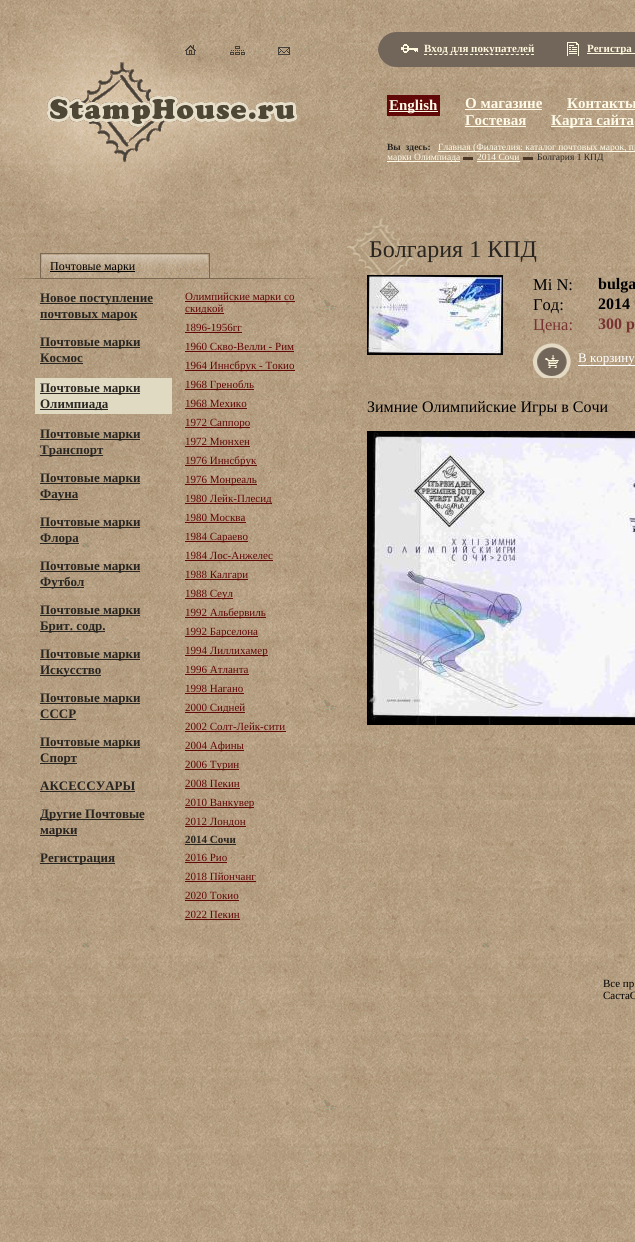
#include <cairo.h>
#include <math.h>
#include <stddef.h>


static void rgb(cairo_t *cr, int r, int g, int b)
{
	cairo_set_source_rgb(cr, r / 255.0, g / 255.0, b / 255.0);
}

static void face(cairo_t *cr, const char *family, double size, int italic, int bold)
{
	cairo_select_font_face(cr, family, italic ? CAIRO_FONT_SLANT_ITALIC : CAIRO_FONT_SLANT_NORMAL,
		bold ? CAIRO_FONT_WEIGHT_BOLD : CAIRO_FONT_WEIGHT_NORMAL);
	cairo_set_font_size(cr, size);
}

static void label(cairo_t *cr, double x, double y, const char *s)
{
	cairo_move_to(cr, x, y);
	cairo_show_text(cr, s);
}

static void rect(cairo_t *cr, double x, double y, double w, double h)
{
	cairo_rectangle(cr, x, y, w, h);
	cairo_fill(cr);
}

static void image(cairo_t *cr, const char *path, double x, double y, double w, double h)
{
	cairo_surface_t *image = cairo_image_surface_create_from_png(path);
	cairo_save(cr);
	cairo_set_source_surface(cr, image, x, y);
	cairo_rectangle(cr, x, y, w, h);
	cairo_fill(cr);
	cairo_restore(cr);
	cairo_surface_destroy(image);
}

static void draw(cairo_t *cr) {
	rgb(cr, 255, 255, 255);
	cairo_paint(cr);
	image(cr, "image0.png", 0, 0, 635, 1242);
	image(cr, "image1.png", 0, 0, 300, 230);
	image(cr, "image2.png", 185, 45, 11, 10);
	image(cr, "image3.png", 230, 46, 15, 9);
	image(cr, "image4.png", 278, 47, 12, 8);
	rgb(cr, 114, 101, 89);
	rect(cr, 378, 32, 257, 35);
	image(cr, "image5.png", 378, 32, 18, 17);
	image(cr, "image6.png", 378, 50, 18, 17);
	image(cr, "image7.png", 401, 44, 17, 9);
	cairo_new_path(cr);
	cairo_move_to(cr, 424, 54.5);
	cairo_line_to(cr, 534, 54.5);
	rgb(cr, 254, 248, 221);
	cairo_set_line_width(cr, 1);
	cairo_set_dash(cr, (double[]){3, 2.1}, 2, 0);
	cairo_stroke(cr);
	face(cr, "Liberation Serif", 11, 0, 1);
	label(cr, 424, 52, "Вход для покупателей");
	image(cr, "image8.png", 567, 42, 12, 14);
	rect(cr, 587, 53, 48, 1);
	label(cr, 587, 52, "Регистра");
	image(cr, "image9.png", 47, 62, 251, 100);
	rgb(cr, 97, 8, 8);
	rect(cr, 387, 95, 53, 21);
	rgb(cr, 255, 251, 232);
	rect(cr, 389, 111, 49, 1);
	face(cr, "Liberation Serif", 15, 0, 1);
	label(cr, 389, 110, "English");
	label(cr, 465, 108, "О магазине");
	rect(cr, 465, 109, 77, 1);
	label(cr, 567, 108, "Контакты");
	rect(cr, 567, 109, 68, 1);
	label(cr, 465, 125, "Гостевая");
	rect(cr, 465, 126, 61, 1);
	rect(cr, 551, 126, 83, 1);
	label(cr, 551, 125, "Карта сайта");
	face(cr, "Liberation Serif", 9.5, 0, 1);
	rgb(cr, 41, 38, 33);
	label(cr, 387, 150, "Вы  здесь:");
	rgb(cr, 255, 251, 232);
	rect(cr, 438, 151, 197, 1);
	face(cr, "Liberation Serif", 9.5, 0, 0);
	label(cr, 438, 150, "Главная (Филaтeлия: кaтaлoг пoчтoвых мaрoк, пp");
	rect(cr, 387, 161, 73, 1);
	label(cr, 387, 160, "марки Олимпиада");
	rgb(cr, 76, 56, 38);
	rect(cr, 463, 157, 10, 3);
	rgb(cr, 255, 251, 232);
	label(cr, 477, 160, "2014 Сочи");
	rgb(cr, 76, 56, 38);
	rect(cr, 523, 157, 10, 3);
	rgb(cr, 255, 251, 232);
	rect(cr, 477, 161, 43, 1);
	rgb(cr, 41, 38, 33);
	label(cr, 537, 160, "Болгария 1 КПД");
	rgb(cr, 122, 104, 83);
	rect(cr, 210, 278, 34, 1);
	image(cr, "image10.png", 0, 253, 210, 26);
	rgb(cr, 0, 0, 0);
	rect(cr, 50, 271, 85, 1);
	face(cr, "Liberation Serif", 12, 0, 0);
	label(cr, 50, 270, "Почтовые марки");
	image(cr, "image11.png", 244, 278, 73, 1);
	rgb(cr, 41, 38, 33);
	rect(cr, 40, 303, 113, 1);
	face(cr, "Liberation Serif", 13, 0, 1);
	label(cr, 40, 302, "Новое поступление");
	rect(cr, 40, 319, 97, 1);
	label(cr, 40, 318, "почтовых марок");
	rect(cr, 40, 347, 100, 1);
	label(cr, 40, 346, "Почтовые марки");
	label(cr, 40, 362, "Космос");
	rect(cr, 40, 363, 43, 1);
	rgb(cr, 225, 218, 195);
	rect(cr, 35, 378, 137, 36);
	rgb(cr, 41, 38, 33);
	rect(cr, 40, 393, 100, 1);
	label(cr, 40, 392, "Почтовые марки");
	rect(cr, 40, 409, 68, 1);
	label(cr, 40, 408, "Олимпиада");
	rect(cr, 40, 439, 100, 1);
	label(cr, 40, 438, "Почтовые марки");
	rect(cr, 40, 455, 63, 1);
	label(cr, 40, 454, "Транспорт");
	rect(cr, 40, 483, 100, 1);
	label(cr, 40, 482, "Почтовые марки");
	rect(cr, 40, 499, 38, 1);
	label(cr, 40, 498, "Фауна");
	rect(cr, 40, 527, 100, 1);
	label(cr, 40, 526, "Почтовые марки");
	rect(cr, 40, 543, 39, 1);
	label(cr, 40, 542, "Флора");
	rect(cr, 40, 571, 100, 1);
	label(cr, 40, 570, "Почтовые марки");
	rect(cr, 40, 587, 44, 1);
	label(cr, 40, 586, "Футбол");
	rect(cr, 40, 615, 100, 1);
	label(cr, 40, 614, "Почтовые марки");
	rect(cr, 40, 631, 65, 1);
	label(cr, 40, 630, "Брит. содр.");
	rect(cr, 40, 659, 100, 1);
	label(cr, 40, 658, "Почтовые марки");
	rect(cr, 40, 675, 61, 1);
	label(cr, 40, 674, "Искусство");
	rect(cr, 40, 703, 100, 1);
	label(cr, 40, 702, "Почтовые марки");
	label(cr, 40, 718, "СССР");
	rect(cr, 40, 719, 36, 1);
	rect(cr, 40, 747, 100, 1);
	label(cr, 40, 746, "Почтовые марки");
	rect(cr, 40, 763, 37, 1);
	label(cr, 40, 762, "Спорт");
	label(cr, 40, 790, "АКСЕССУАРЫ");
	rect(cr, 40, 791, 95, 1);
	rect(cr, 40, 819, 104, 1);
	label(cr, 40, 818, "Другие Почтовые");
	rect(cr, 40, 835, 37, 1);
	label(cr, 40, 834, "марки");
	rect(cr, 40, 863, 75, 1);
	label(cr, 40, 862, "Регистрация");
	rgb(cr, 97, 8, 8);
	rect(cr, 185, 301, 110, 1);
	face(cr, "Liberation Serif", 11, 0, 0);
	label(cr, 185, 300, "Олимпийские марки со");
	rect(cr, 185, 313, 39, 1);
	label(cr, 185, 312, "скидкой");
	label(cr, 185, 331, "1896-1956гг");
	rect(cr, 185, 332, 57, 1);
	label(cr, 185, 350, "1960 Скво-Велли - Рим");
	rect(cr, 185, 351, 109, 1);
	rect(cr, 185, 370, 110, 1);
	label(cr, 185, 369, "1964 Иннсбрук - Токио");
	rect(cr, 185, 389, 69, 1);
	label(cr, 185, 388, "1968 Гренобль");
	label(cr, 185, 407, "1968 Мехико");
	rect(cr, 185, 408, 62, 1);
	rect(cr, 185, 427, 65, 1);
	label(cr, 185, 426, "1972 Саппоро");
	label(cr, 185, 445, "1972 Мюнхен");
	rect(cr, 185, 446, 65, 1);
	rect(cr, 185, 465, 72, 1);
	label(cr, 185, 464, "1976 Иннсбрук");
	rect(cr, 185, 484, 72, 1);
	label(cr, 185, 483, "1976 Монреаль");
	rect(cr, 185, 503, 87, 1);
	label(cr, 185, 502, "1980 Лейк-Плесид");
	label(cr, 185, 521, "1980 Москва");
	rect(cr, 185, 522, 61, 1);
	rect(cr, 185, 541, 63, 1);
	label(cr, 185, 540, "1984 Сараево");
	label(cr, 185, 559, "1984 Лос-Анжелес");
	rect(cr, 185, 560, 88, 1);
	rect(cr, 185, 579, 63, 1);
	label(cr, 185, 578, "1988 Калгари");
	rect(cr, 185, 598, 48, 1);
	label(cr, 185, 597, "1988 Сеул");
	rect(cr, 185, 617, 81, 1);
	label(cr, 185, 616, "1992 Альбервиль");
	rect(cr, 185, 636, 73, 1);
	label(cr, 185, 635, "1992 Барселона");
	rect(cr, 185, 655, 83, 1);
	label(cr, 185, 654, "1994 Лиллихамер");
	label(cr, 185, 673, "1996 Атланта");
	rect(cr, 185, 674, 64, 1);
	label(cr, 185, 692, "1998 Нагано");
	rect(cr, 185, 693, 59, 1);
	rect(cr, 185, 712, 60, 1);
	label(cr, 185, 711, "2000 Сидней");
	label(cr, 185, 730, "2002 Солт-Лейк-сити");
	rect(cr, 185, 731, 101, 1);
	rect(cr, 185, 750, 59, 1);
	label(cr, 185, 749, "2004 Афины");
	rect(cr, 185, 769, 54, 1);
	label(cr, 185, 768, "2006 Турин");
	label(cr, 185, 787, "2008 Пекин");
	rect(cr, 185, 788, 55, 1);
	rect(cr, 185, 807, 69, 1);
	label(cr, 185, 806, "2010 Ванкувер");
	rect(cr, 185, 826, 61, 1);
	label(cr, 185, 825, "2012 Лондон");
	face(cr, "Liberation Serif", 11, 0, 1);
	rgb(cr, 41, 38, 33);
	label(cr, 185, 843, "2014 Сочи");
	rect(cr, 185, 844, 51, 1);
	face(cr, "Liberation Serif", 11, 0, 0);
	rgb(cr, 97, 8, 8);
	label(cr, 185, 861, "2016 Рио");
	rect(cr, 185, 862, 42, 1);
	label(cr, 185, 880, "2018 Пйончанг");
	rect(cr, 185, 881, 71, 1);
	label(cr, 185, 899, "2020 Токио");
	rect(cr, 185, 900, 54, 1);
	label(cr, 185, 918, "2022 Пекин");
	rect(cr, 185, 919, 55, 1);
	image(cr, "image12.png", 347, 218, 67, 57);
	face(cr, "Liberation Serif", 24, 0, 0);
	rgb(cr, 41, 38, 33);
	label(cr, 369, 257, "Болгария 1 КПД");
	image(cr, "image13.png", 367, 275, 136, 80);
	face(cr, "Liberation Serif", 16.5, 0, 0);
	rgb(cr, 0, 0, 0);
	label(cr, 533, 290, "Mi N:");
	face(cr, "Liberation Serif", 16, 0, 1);
	label(cr, 598, 289, "bulga");
	face(cr, "Liberation Serif", 16.5, 0, 0);
	label(cr, 533, 310, "Год:");
	face(cr, "Liberation Serif", 16, 0, 1);
	label(cr, 598, 309, "2014");
	face(cr, "Liberation Serif", 16.5, 0, 0);
	rgb(cr, 121, 50, 50);
	label(cr, 533, 330, "Цена:");
	face(cr, "Liberation Serif", 16, 0, 1);
	label(cr, 598, 329, "300 р");
	image(cr, "image14.png", 533, 343, 38, 35);
	face(cr, "Liberation Serif", 13, 0, 0);
	rgb(cr, 255, 255, 255);
	label(cr, 578, 362, "В корзину");
	rect(cr, 578, 365, 57, 1);
	face(cr, "Liberation Serif", 16, 0, 0);
	rgb(cr, 0, 0, 0);
	label(cr, 367, 412, "Зимние Олимпийские Игры в Сочи");
	image(cr, "image15.png", 367, 431, 268, 294);
	face(cr, "Liberation Serif", 11, 0, 0);
	label(cr, 603, 987, "Все пр");
	label(cr, 603, 999, "СастаС");
}

int main(void) {
	cairo_surface_t *surface = cairo_image_surface_create(CAIRO_FORMAT_RGB24, 635, 1242);
	cairo_t *cr = cairo_create(surface);
	cairo_font_options_t *options = cairo_font_options_create();
	cairo_font_options_set_hint_metrics(options, CAIRO_HINT_METRICS_OFF);
	cairo_font_options_set_hint_style(options, CAIRO_HINT_STYLE_NONE);
	cairo_set_font_options(cr, options);
	cairo_set_miter_limit(cr, 4);
	draw(cr);
	cairo_surface_write_to_png(surface, "render.png");
	cairo_font_options_destroy(options);
	cairo_destroy(cr);
	cairo_surface_destroy(surface);
	return 0;
}
